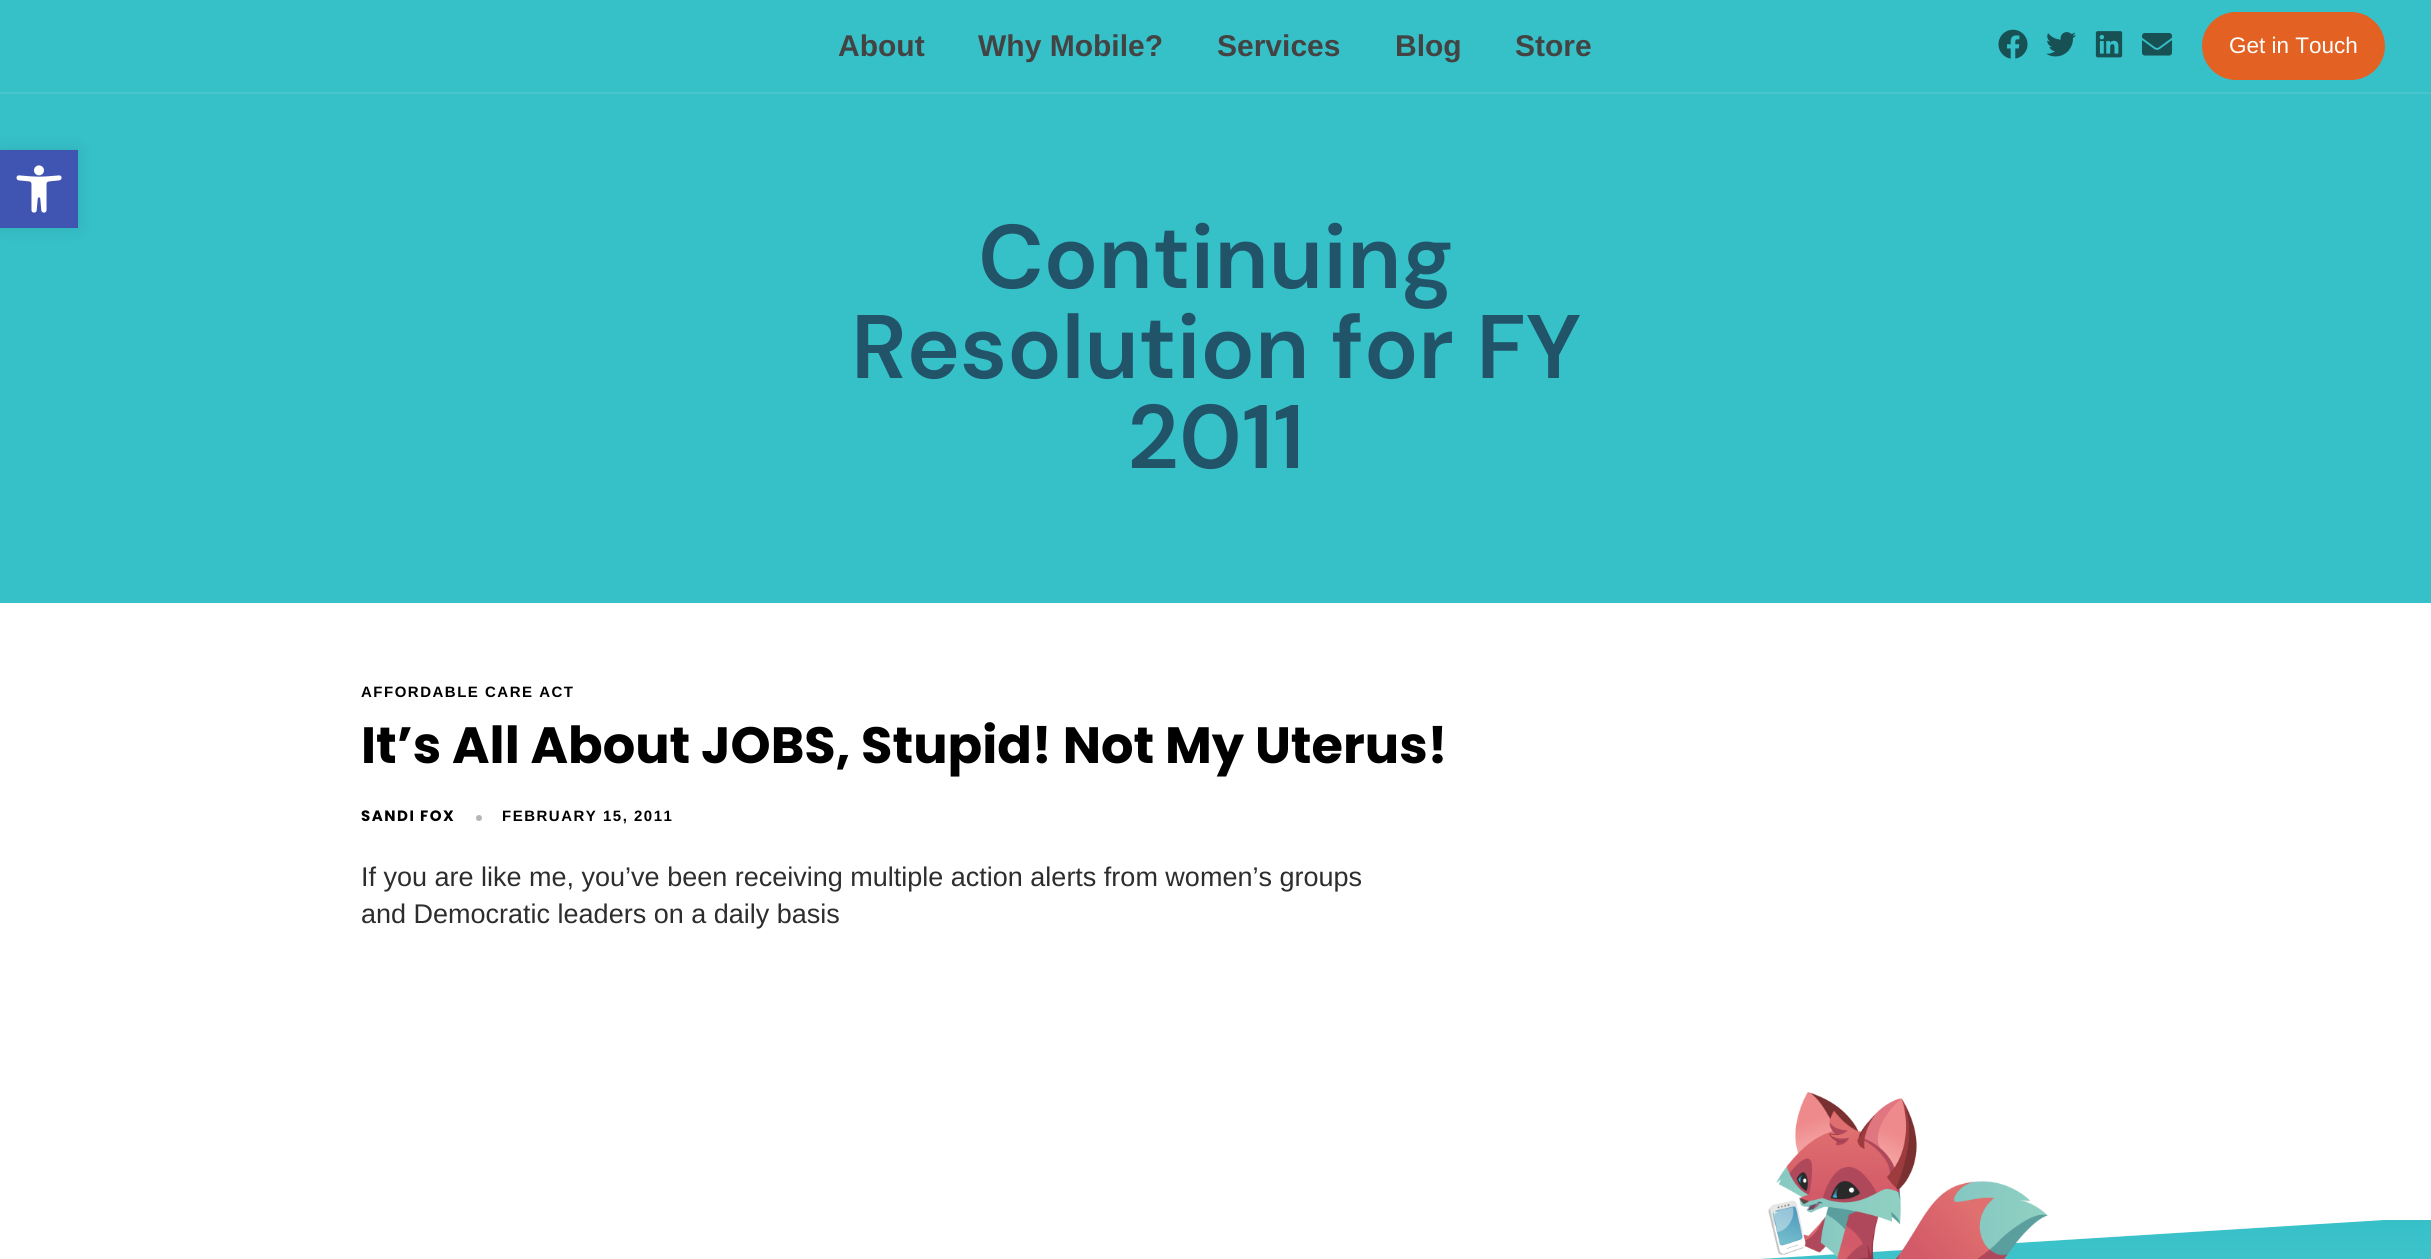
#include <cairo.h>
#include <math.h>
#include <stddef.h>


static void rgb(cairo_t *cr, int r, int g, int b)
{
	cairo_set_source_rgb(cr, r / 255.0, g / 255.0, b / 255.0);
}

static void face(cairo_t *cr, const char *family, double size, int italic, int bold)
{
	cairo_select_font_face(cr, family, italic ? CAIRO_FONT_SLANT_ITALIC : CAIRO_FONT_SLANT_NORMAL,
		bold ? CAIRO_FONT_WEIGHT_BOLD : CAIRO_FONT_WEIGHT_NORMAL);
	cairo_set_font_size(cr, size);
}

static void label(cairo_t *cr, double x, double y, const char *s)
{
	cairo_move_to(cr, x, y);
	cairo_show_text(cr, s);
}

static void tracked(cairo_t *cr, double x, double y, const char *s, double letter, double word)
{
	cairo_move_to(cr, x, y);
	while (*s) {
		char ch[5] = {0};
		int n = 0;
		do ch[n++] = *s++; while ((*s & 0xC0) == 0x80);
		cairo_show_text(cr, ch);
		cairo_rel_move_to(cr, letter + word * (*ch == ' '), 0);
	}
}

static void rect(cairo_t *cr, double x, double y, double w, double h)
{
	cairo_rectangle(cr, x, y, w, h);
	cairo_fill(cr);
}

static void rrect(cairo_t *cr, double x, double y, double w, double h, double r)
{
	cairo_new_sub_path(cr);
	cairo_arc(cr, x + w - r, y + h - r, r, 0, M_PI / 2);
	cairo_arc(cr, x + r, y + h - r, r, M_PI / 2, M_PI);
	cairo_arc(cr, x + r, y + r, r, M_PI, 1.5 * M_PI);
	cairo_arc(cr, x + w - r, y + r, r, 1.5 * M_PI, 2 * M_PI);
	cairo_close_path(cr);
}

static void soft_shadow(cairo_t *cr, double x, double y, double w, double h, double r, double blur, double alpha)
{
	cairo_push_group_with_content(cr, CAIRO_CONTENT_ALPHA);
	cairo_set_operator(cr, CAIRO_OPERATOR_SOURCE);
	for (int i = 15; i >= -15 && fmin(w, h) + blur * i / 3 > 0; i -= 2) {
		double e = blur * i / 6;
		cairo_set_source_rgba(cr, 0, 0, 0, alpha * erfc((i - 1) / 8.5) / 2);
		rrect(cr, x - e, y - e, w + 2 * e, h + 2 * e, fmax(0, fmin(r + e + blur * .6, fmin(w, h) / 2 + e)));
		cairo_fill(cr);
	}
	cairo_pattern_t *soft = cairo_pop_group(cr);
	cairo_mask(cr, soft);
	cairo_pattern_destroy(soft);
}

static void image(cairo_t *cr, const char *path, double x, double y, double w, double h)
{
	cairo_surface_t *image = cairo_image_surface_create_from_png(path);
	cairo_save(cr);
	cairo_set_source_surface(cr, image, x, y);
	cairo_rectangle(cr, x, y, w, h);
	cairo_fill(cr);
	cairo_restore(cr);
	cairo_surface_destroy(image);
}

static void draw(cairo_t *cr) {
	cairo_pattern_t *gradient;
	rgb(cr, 255, 255, 255);
	cairo_paint(cr);
	rgb(cr, 54, 192, 200);
	rect(cr, 0, 0, 2431, 603);
	rgb(cr, 0, 0, 0);
	soft_shadow(cr, 0, 150, 78, 78, 0, 7.5, 0.1);
	rgb(cr, 64, 84, 178);
	rect(cr, 0, 150, 78, 78);
	image(cr, "image0.png", 16, 165, 46, 48);
	rgb(cr, 72, 198, 205);
	rect(cr, 0, 92, 2431, 2);
	face(cr, "Liberation Sans", 30, 0, 1);
	rgb(cr, 67, 67, 67);
	label(cr, 838, 56, "About");
	label(cr, 978, 56, "Why Mobile?");
	label(cr, 1217, 56, "Services");
	label(cr, 1395, 56, "Blog");
	label(cr, 1515, 56, "Store");
	image(cr, "image1.png", 1998, 29, 30, 30);
	image(cr, "image2.png", 2046, 32, 30, 25);
	image(cr, "image3.png", 2095, 31, 28, 27);
	image(cr, "image4.png", 2142, 33, 30, 23);
	rgb(cr, 227, 98, 35);
	rrect(cr, 2202, 12, 183, 68, 34);
	cairo_fill(cr);
	face(cr, "Liberation Sans", 22.5, 0, 0);
	rgb(cr, 255, 255, 255);
	label(cr, 2229, 53, "Get in Touch");
	face(cr, "DM Sans SemiBold", 90, 0, 0);
	rgb(cr, 34, 84, 105);
	label(cr, 978, 288, "Continuing");
	label(cr, 851, 378, "Resolution for FY");
	label(cr, 1127, 468, "2011");
	face(cr, "Liberation Sans", 15, 0, 1);
	rgb(cr, 0, 0, 0);
	tracked(cr, 361, 697, "AFFORDABLE CARE ACT", 1.5, 0);
	face(cr, "Poppins", 51, 0, 1);
	label(cr, 361, 763, "It’s All About JOBS, Stupid! Not My Uterus!");
	face(cr, "Poppins", 15, 0, 1);
	tracked(cr, 361, 821, "SANDI FOX", 1.5, 0);
	rgb(cr, 182, 182, 182);
	cairo_new_path(cr);
	cairo_arc(cr, 479, 818, 3, 0, 2 * M_PI);
	cairo_fill(cr);
	face(cr, "Liberation Sans", 15, 0, 1);
	rgb(cr, 0, 0, 0);
	tracked(cr, 502, 821, "FEBRUARY 15, 2011", 1.5, 0);
	face(cr, "Liberation Sans", 27, 0, 0);
	rgb(cr, 45, 45, 45);
	label(cr, 361, 886, "If you are like me, you’ve been receiving multiple action alerts from women’s groups");
	label(cr, 361, 923, "and Democratic leaders on a daily basis");
	gradient = cairo_pattern_create_linear(1216, 1219, 1216, 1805);
	cairo_pattern_add_color_stop_rgba(gradient, 0, 0.212, 0.753, 0.784, 1);
	cairo_pattern_add_color_stop_rgba(gradient, 1, 0.725, 0.914, 0.925, 1);
	cairo_set_source(cr, gradient);
	cairo_pattern_destroy(gradient);
	rect(cr, 1760, 1220, 671, 39);
	cairo_save(cr);
	cairo_rectangle(cr, 0, 1218, 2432, 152);
	cairo_clip(cr);
	rgb(cr, 255, 255, 255);
	cairo_new_path(cr);
	cairo_move_to(cr, -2, 1217);
	cairo_line_to(cr, -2, 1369);
	cairo_line_to(cr, 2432, 1217);
	cairo_close_path(cr);
	cairo_fill(cr);
	cairo_restore(cr);
	image(cr, "image5.png", 1768, 1092, 280, 167);
}

int main(void) {
	cairo_surface_t *surface = cairo_image_surface_create(CAIRO_FORMAT_RGB24, 2431, 1259);
	cairo_t *cr = cairo_create(surface);
	cairo_font_options_t *options = cairo_font_options_create();
	cairo_font_options_set_hint_metrics(options, CAIRO_HINT_METRICS_OFF);
	cairo_font_options_set_hint_style(options, CAIRO_HINT_STYLE_NONE);
	cairo_set_font_options(cr, options);
	cairo_set_miter_limit(cr, 4);
	draw(cr);
	cairo_surface_write_to_png(surface, "render.png");
	cairo_font_options_destroy(options);
	cairo_destroy(cr);
	cairo_surface_destroy(surface);
	return 0;
}
